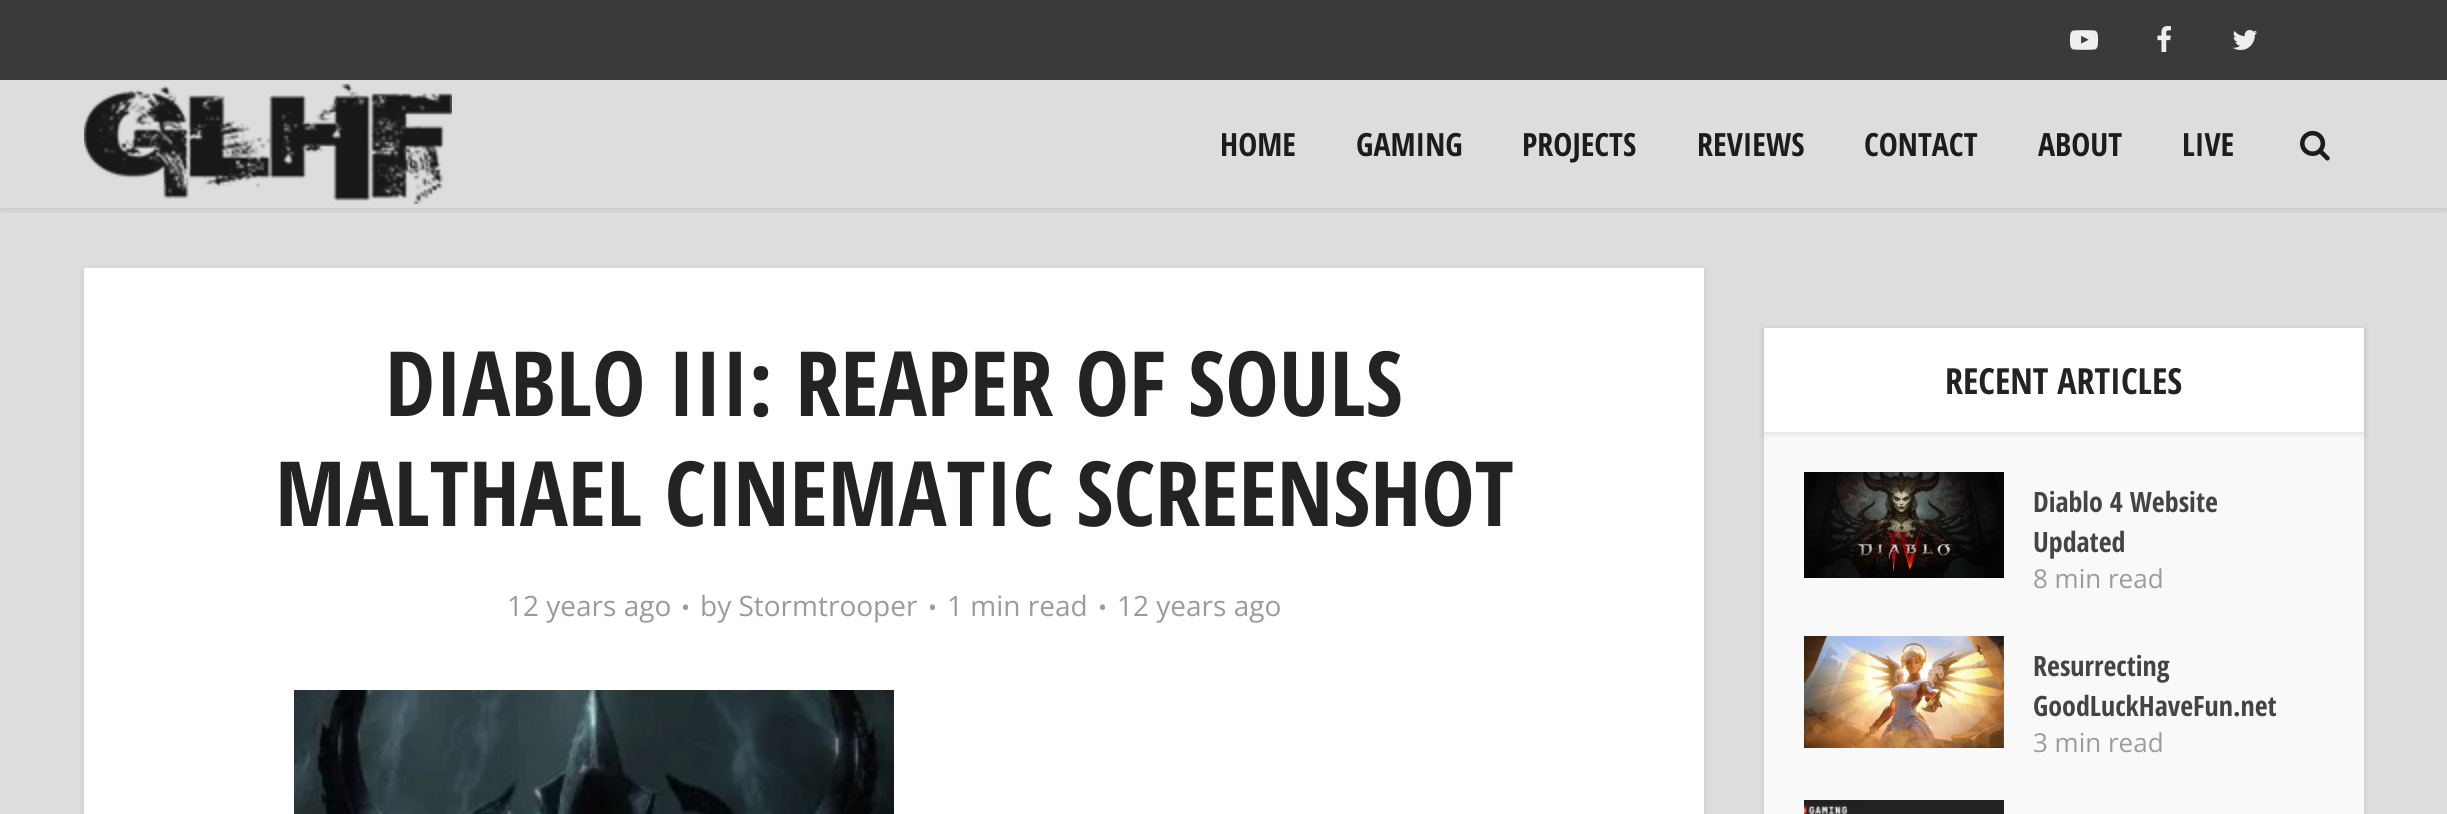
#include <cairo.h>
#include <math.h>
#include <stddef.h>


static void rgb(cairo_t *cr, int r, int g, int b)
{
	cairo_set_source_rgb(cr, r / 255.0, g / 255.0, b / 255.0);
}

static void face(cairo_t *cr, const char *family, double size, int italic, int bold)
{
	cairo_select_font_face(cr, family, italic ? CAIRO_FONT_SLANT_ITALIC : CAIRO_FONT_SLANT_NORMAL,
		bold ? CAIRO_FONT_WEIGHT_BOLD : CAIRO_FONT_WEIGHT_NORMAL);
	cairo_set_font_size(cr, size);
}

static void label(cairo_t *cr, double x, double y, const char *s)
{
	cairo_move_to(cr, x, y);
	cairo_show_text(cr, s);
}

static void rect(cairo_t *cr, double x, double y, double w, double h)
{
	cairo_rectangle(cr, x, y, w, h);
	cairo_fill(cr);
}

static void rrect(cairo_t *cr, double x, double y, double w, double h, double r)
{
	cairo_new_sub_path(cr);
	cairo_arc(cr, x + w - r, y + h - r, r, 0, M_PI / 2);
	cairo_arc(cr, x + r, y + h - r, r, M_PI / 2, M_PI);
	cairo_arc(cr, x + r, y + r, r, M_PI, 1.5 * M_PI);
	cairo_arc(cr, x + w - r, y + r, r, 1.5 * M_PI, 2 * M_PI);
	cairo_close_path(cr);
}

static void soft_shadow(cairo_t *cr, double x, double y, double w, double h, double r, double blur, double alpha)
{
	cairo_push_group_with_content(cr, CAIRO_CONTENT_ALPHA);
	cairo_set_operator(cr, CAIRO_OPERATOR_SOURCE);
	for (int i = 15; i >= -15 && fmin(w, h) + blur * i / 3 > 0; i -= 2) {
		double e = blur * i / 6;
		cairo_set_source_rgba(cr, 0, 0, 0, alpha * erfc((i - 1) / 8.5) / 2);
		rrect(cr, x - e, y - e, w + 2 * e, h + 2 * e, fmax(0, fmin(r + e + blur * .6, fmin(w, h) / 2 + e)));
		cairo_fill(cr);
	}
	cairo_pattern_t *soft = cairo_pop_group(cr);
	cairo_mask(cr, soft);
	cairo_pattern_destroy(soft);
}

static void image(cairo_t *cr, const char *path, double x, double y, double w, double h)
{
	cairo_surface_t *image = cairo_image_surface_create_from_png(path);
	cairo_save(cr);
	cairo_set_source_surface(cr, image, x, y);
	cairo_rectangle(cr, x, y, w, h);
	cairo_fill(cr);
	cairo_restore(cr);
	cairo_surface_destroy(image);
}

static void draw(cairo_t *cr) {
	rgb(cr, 221, 221, 221);
	cairo_paint(cr);
	cairo_save(cr);
	cairo_rectangle(cr, 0, 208, 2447, 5);
	cairo_clip(cr);
	rgb(cr, 0, 0, 0);
	soft_shadow(cr, 0, 2, 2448, 208, 0, 3, 0.1);
	cairo_restore(cr);
	rgb(cr, 58, 58, 58);
	rect(cr, 0, 0, 2447, 80);
	image(cr, "image0.png", 2070, 30, 28, 20);
	image(cr, "image1.png", 2157, 26, 14, 26);
	image(cr, "image2.png", 2232, 30, 26, 20);
	image(cr, "image3.png", 84, 84, 368, 120);
	face(cr, "Open Sans Condensed", 32, 0, 1);
	rgb(cr, 28, 28, 28);
	label(cr, 1220, 156, "HOME");
	label(cr, 1356, 156, "GAMING");
	label(cr, 1522, 156, "PROJECTS");
	label(cr, 1697, 156, "REVIEWS");
	label(cr, 1864, 156, "CONTACT");
	label(cr, 2038, 156, "ABOUT");
	label(cr, 2182, 156, "LIVE");
	image(cr, "image4.png", 2300, 130, 30, 31);
	rgb(cr, 0, 0, 0);
	soft_shadow(cr, 84, 270, 1620, 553, 0, 3, 0.1);
	rgb(cr, 255, 255, 255);
	rect(cr, 84, 268, 1620, 546);
	face(cr, "Open Sans Condensed", 90, 0, 1);
	rgb(cr, 35, 35, 35);
	label(cr, 385, 416, "DIABLO III: REAPER OF SOULS");
	label(cr, 275, 526, "MALTHAEL CINEMATIC SCREENSHOT");
	face(cr, "Open Sans", 28, 0, 0);
	rgb(cr, 155, 155, 155);
	label(cr, 507, 616, "12 years ago");
	face(cr, "Open Sans", 24, 0, 0);
	label(cr, 681, 616, "•");
	face(cr, "Open Sans", 28, 0, 0);
	label(cr, 700, 616, "by Stormtrooper");
	face(cr, "Open Sans", 24, 0, 0);
	label(cr, 928, 616, "•");
	face(cr, "Open Sans", 28, 0, 0);
	label(cr, 947, 616, "1 min read");
	face(cr, "Open Sans", 24, 0, 0);
	label(cr, 1098, 616, "•");
	face(cr, "Open Sans", 28, 0, 0);
	label(cr, 1117, 616, "12 years ago");
	image(cr, "image5.png", 294, 690, 600, 124);
	rgb(cr, 0, 0, 0);
	soft_shadow(cr, 1764, 330, 600, 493, 0, 3, 0.1);
	rgb(cr, 249, 249, 249);
	rect(cr, 1764, 432, 600, 382);
	rgb(cr, 0, 0, 0);
	soft_shadow(cr, 1764, 330, 600, 104, 0, 3, 0.1);
	rgb(cr, 255, 255, 255);
	rect(cr, 1764, 328, 600, 104);
	face(cr, "Open Sans Condensed", 36, 0, 1);
	rgb(cr, 35, 35, 35);
	label(cr, 1945, 394, "RECENT ARTICLES");
	image(cr, "image6.png", 1804, 472, 200, 106);
	face(cr, "Open Sans Condensed", 28, 0, 1);
	rgb(cr, 68, 68, 68);
	label(cr, 2033, 512, "Diablo 4 Website");
	label(cr, 2033, 552, "Updated");
	face(cr, "Open Sans", 26, 0, 0);
	rgb(cr, 155, 155, 155);
	label(cr, 2033, 588, "8 min read");
	image(cr, "image7.png", 1804, 636, 200, 112);
	face(cr, "Open Sans Condensed", 28, 0, 1);
	rgb(cr, 68, 68, 68);
	label(cr, 2033, 676, "Resurrecting");
	label(cr, 2033, 716, "GoodLuckHaveFun.net");
	face(cr, "Open Sans", 26, 0, 0);
	rgb(cr, 155, 155, 155);
	label(cr, 2033, 752, "3 min read");
	image(cr, "image8.png", 1804, 800, 200, 14);
}

int main(void) {
	cairo_surface_t *surface = cairo_image_surface_create(CAIRO_FORMAT_RGB24, 2447, 814);
	cairo_t *cr = cairo_create(surface);
	cairo_font_options_t *options = cairo_font_options_create();
	cairo_font_options_set_hint_metrics(options, CAIRO_HINT_METRICS_OFF);
	cairo_font_options_set_hint_style(options, CAIRO_HINT_STYLE_NONE);
	cairo_set_font_options(cr, options);
	cairo_set_miter_limit(cr, 4);
	draw(cr);
	cairo_surface_write_to_png(surface, "render.png");
	cairo_font_options_destroy(options);
	cairo_destroy(cr);
	cairo_surface_destroy(surface);
	return 0;
}
